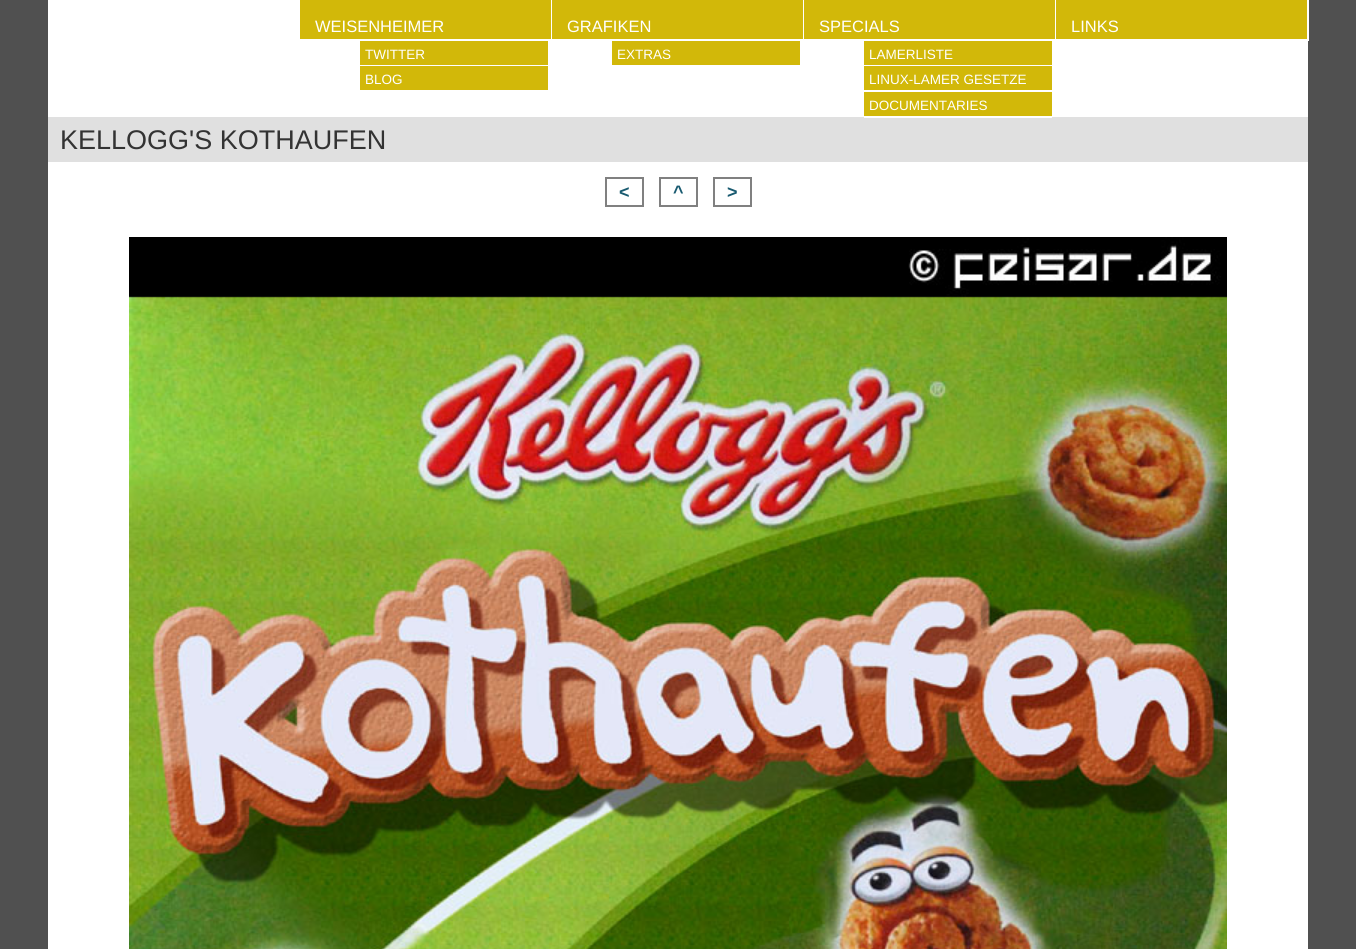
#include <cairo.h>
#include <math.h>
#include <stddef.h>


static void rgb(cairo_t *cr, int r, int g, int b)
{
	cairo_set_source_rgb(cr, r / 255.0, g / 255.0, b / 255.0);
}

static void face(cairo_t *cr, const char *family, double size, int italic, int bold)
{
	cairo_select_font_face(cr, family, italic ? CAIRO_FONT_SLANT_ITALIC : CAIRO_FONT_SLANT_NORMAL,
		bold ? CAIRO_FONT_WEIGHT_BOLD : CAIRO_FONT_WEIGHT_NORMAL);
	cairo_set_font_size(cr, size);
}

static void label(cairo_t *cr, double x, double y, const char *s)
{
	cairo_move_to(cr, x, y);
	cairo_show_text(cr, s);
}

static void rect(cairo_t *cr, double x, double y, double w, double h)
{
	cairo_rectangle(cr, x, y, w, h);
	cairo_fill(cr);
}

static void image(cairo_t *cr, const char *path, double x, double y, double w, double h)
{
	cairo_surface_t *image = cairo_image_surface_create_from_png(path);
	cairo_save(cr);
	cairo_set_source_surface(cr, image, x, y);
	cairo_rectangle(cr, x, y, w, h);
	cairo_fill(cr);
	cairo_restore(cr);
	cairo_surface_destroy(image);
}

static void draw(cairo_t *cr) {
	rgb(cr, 80, 80, 80);
	cairo_paint(cr);
	rgb(cr, 255, 255, 255);
	rect(cr, 48, 0, 1260, 949);
	rgb(cr, 210, 184, 9);
	rect(cr, 300, 0, 251, 39);
	face(cr, "Liberation Sans", 16.5, 0, 0);
	rgb(cr, 255, 255, 255);
	label(cr, 315, 32, "WEISENHEIMER");
	rgb(cr, 210, 184, 9);
	rect(cr, 360, 41, 188, 24);
	face(cr, "Liberation Sans", 13.5, 0, 0);
	rgb(cr, 255, 255, 255);
	label(cr, 365, 59, "TWITTER");
	rgb(cr, 210, 184, 9);
	rect(cr, 360, 66, 188, 24);
	rgb(cr, 255, 255, 255);
	label(cr, 365, 84, "BLOG");
	rgb(cr, 210, 184, 9);
	rect(cr, 552, 0, 251, 39);
	face(cr, "Liberation Sans", 16.5, 0, 0);
	rgb(cr, 255, 255, 255);
	label(cr, 567, 32, "GRAFIKEN");
	rgb(cr, 210, 184, 9);
	rect(cr, 612, 41, 188, 24);
	face(cr, "Liberation Sans", 13.5, 0, 0);
	rgb(cr, 255, 255, 255);
	label(cr, 617, 59, "EXTRAS");
	rgb(cr, 210, 184, 9);
	rect(cr, 804, 0, 251, 39);
	face(cr, "Liberation Sans", 16.5, 0, 0);
	rgb(cr, 255, 255, 255);
	label(cr, 819, 32, "SPECIALS");
	rgb(cr, 210, 184, 9);
	rect(cr, 864, 41, 188, 24);
	face(cr, "Liberation Sans", 13.5, 0, 0);
	rgb(cr, 255, 255, 255);
	label(cr, 869, 59, "LAMERLISTE");
	rgb(cr, 210, 184, 9);
	rect(cr, 864, 66, 188, 24);
	rgb(cr, 255, 255, 255);
	label(cr, 869, 84, "LINUX-LAMER GESETZE");
	rgb(cr, 210, 184, 9);
	rect(cr, 864, 92, 188, 24);
	rgb(cr, 224, 224, 224);
	rect(cr, 48, 117, 1260, 45);
	rgb(cr, 255, 255, 255);
	rect(cr, 864, 117, 188, 1);
	label(cr, 869, 110, "DOCUMENTARIES");
	rect(cr, 1308, 0, 1, 41);
	rgb(cr, 210, 184, 9);
	rect(cr, 1056, 0, 251, 39);
	face(cr, "Liberation Sans", 16.5, 0, 0);
	rgb(cr, 255, 255, 255);
	label(cr, 1071, 32, "LINKS");
	face(cr, "Liberation Sans", 27, 0, 0);
	rgb(cr, 51, 51, 51);
	label(cr, 60, 149, "KELLOGG'S KOTHAUFEN");
	cairo_rectangle(cr, 606, 178, 37, 28);
	rgb(cr, 128, 128, 128);
	cairo_stroke(cr);
	face(cr, "Liberation Sans", 18, 0, 1);
	rgb(cr, 24, 90, 112);
	label(cr, 619, 198, "<");
	cairo_rectangle(cr, 660, 178, 37, 28);
	rgb(cr, 128, 128, 128);
	cairo_stroke(cr);
	rgb(cr, 24, 90, 112);
	label(cr, 673, 198, "^");
	cairo_rectangle(cr, 714, 178, 37, 28);
	rgb(cr, 128, 128, 128);
	cairo_stroke(cr);
	rgb(cr, 24, 90, 112);
	label(cr, 727, 198, ">");
	image(cr, "image0.png", 129, 237, 1098, 712);
}

int main(void) {
	cairo_surface_t *surface = cairo_image_surface_create(CAIRO_FORMAT_RGB24, 1356, 949);
	cairo_t *cr = cairo_create(surface);
	cairo_font_options_t *options = cairo_font_options_create();
	cairo_font_options_set_hint_metrics(options, CAIRO_HINT_METRICS_OFF);
	cairo_font_options_set_hint_style(options, CAIRO_HINT_STYLE_NONE);
	cairo_set_font_options(cr, options);
	cairo_set_miter_limit(cr, 4);
	draw(cr);
	cairo_surface_write_to_png(surface, "render.png");
	cairo_font_options_destroy(options);
	cairo_destroy(cr);
	cairo_surface_destroy(surface);
	return 0;
}
